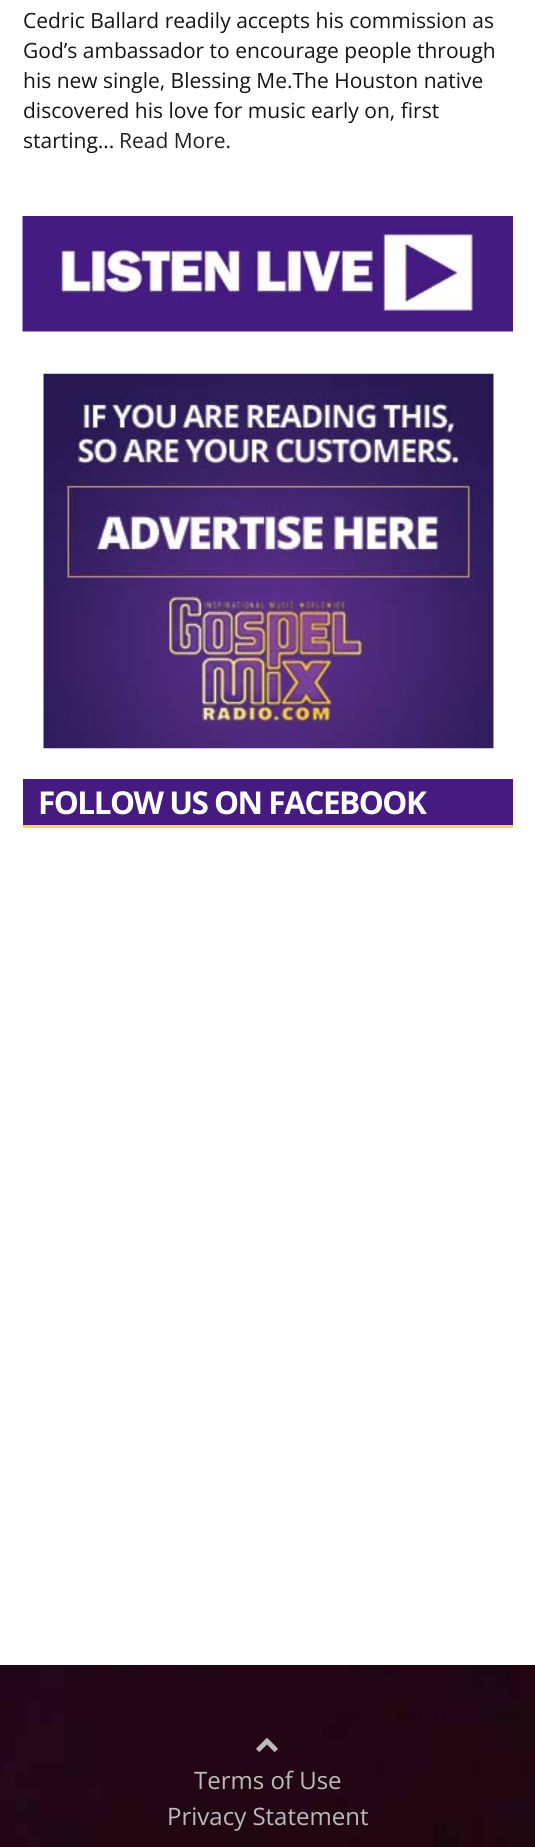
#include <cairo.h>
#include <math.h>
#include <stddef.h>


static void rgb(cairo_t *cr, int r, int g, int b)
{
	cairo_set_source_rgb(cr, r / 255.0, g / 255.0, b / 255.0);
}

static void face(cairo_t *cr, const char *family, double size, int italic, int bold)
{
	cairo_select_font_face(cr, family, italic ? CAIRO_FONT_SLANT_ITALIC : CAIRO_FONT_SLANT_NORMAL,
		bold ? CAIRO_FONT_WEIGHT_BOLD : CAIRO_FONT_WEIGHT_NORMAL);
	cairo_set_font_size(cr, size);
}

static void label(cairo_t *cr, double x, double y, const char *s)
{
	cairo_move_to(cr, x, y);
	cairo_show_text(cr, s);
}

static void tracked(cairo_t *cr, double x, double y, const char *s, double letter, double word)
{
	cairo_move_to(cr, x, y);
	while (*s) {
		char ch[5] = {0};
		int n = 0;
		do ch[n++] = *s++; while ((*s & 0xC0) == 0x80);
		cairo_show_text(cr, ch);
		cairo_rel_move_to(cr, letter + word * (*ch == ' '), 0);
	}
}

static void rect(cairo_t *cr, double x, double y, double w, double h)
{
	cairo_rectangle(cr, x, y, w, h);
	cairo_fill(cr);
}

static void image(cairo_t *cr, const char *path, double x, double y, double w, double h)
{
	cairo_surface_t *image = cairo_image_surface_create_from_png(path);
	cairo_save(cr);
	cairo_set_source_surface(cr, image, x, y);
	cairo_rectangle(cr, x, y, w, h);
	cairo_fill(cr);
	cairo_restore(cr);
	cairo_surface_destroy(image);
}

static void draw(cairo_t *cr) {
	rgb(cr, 255, 255, 255);
	cairo_paint(cr);
	image(cr, "image0.png", 0, 1665, 535, 182);
	face(cr, "Open Sans", 21, 0, 0);
	rgb(cr, 20, 20, 20);
	label(cr, 23, 28, "Cedric Ballard readily accepts his commission as");
	label(cr, 23, 58, "God’s ambassador to encourage people through");
	label(cr, 23, 88, "his new single, Blessing Me.The Houston native");
	label(cr, 23, 118, "discovered his love for music early on, first");
	label(cr, 23, 148, "starting...");
	rgb(cr, 34, 34, 34);
	label(cr, 119, 148, "Read More.");
	image(cr, "image1.png", 22, 216, 491, 116);
	image(cr, "image2.png", 43, 373, 451, 376);
	rgb(cr, 69, 27, 130);
	rect(cr, 23, 779, 490, 46);
	rgb(cr, 250, 212, 93);
	rect(cr, 23, 825, 490, 3);
	face(cr, "Open Sans", 31.5, 0, 1);
	rgb(cr, 255, 255, 255);
	tracked(cr, 38, 814, "FOLLOW US ON FACEBOOK", -1.5, 0);
	image(cr, "image3.png", 256, 1738, 22, 14);
	face(cr, "Open Sans", 24, 0, 0);
	rgb(cr, 187, 187, 187);
	label(cr, 194, 1789, "Terms of Use");
	label(cr, 167, 1825, "Privacy Statement");
}

int main(void) {
	cairo_surface_t *surface = cairo_image_surface_create(CAIRO_FORMAT_RGB24, 535, 1847);
	cairo_t *cr = cairo_create(surface);
	cairo_font_options_t *options = cairo_font_options_create();
	cairo_font_options_set_hint_metrics(options, CAIRO_HINT_METRICS_OFF);
	cairo_font_options_set_hint_style(options, CAIRO_HINT_STYLE_NONE);
	cairo_set_font_options(cr, options);
	cairo_set_miter_limit(cr, 4);
	draw(cr);
	cairo_surface_write_to_png(surface, "render.png");
	cairo_font_options_destroy(options);
	cairo_destroy(cr);
	cairo_surface_destroy(surface);
	return 0;
}
